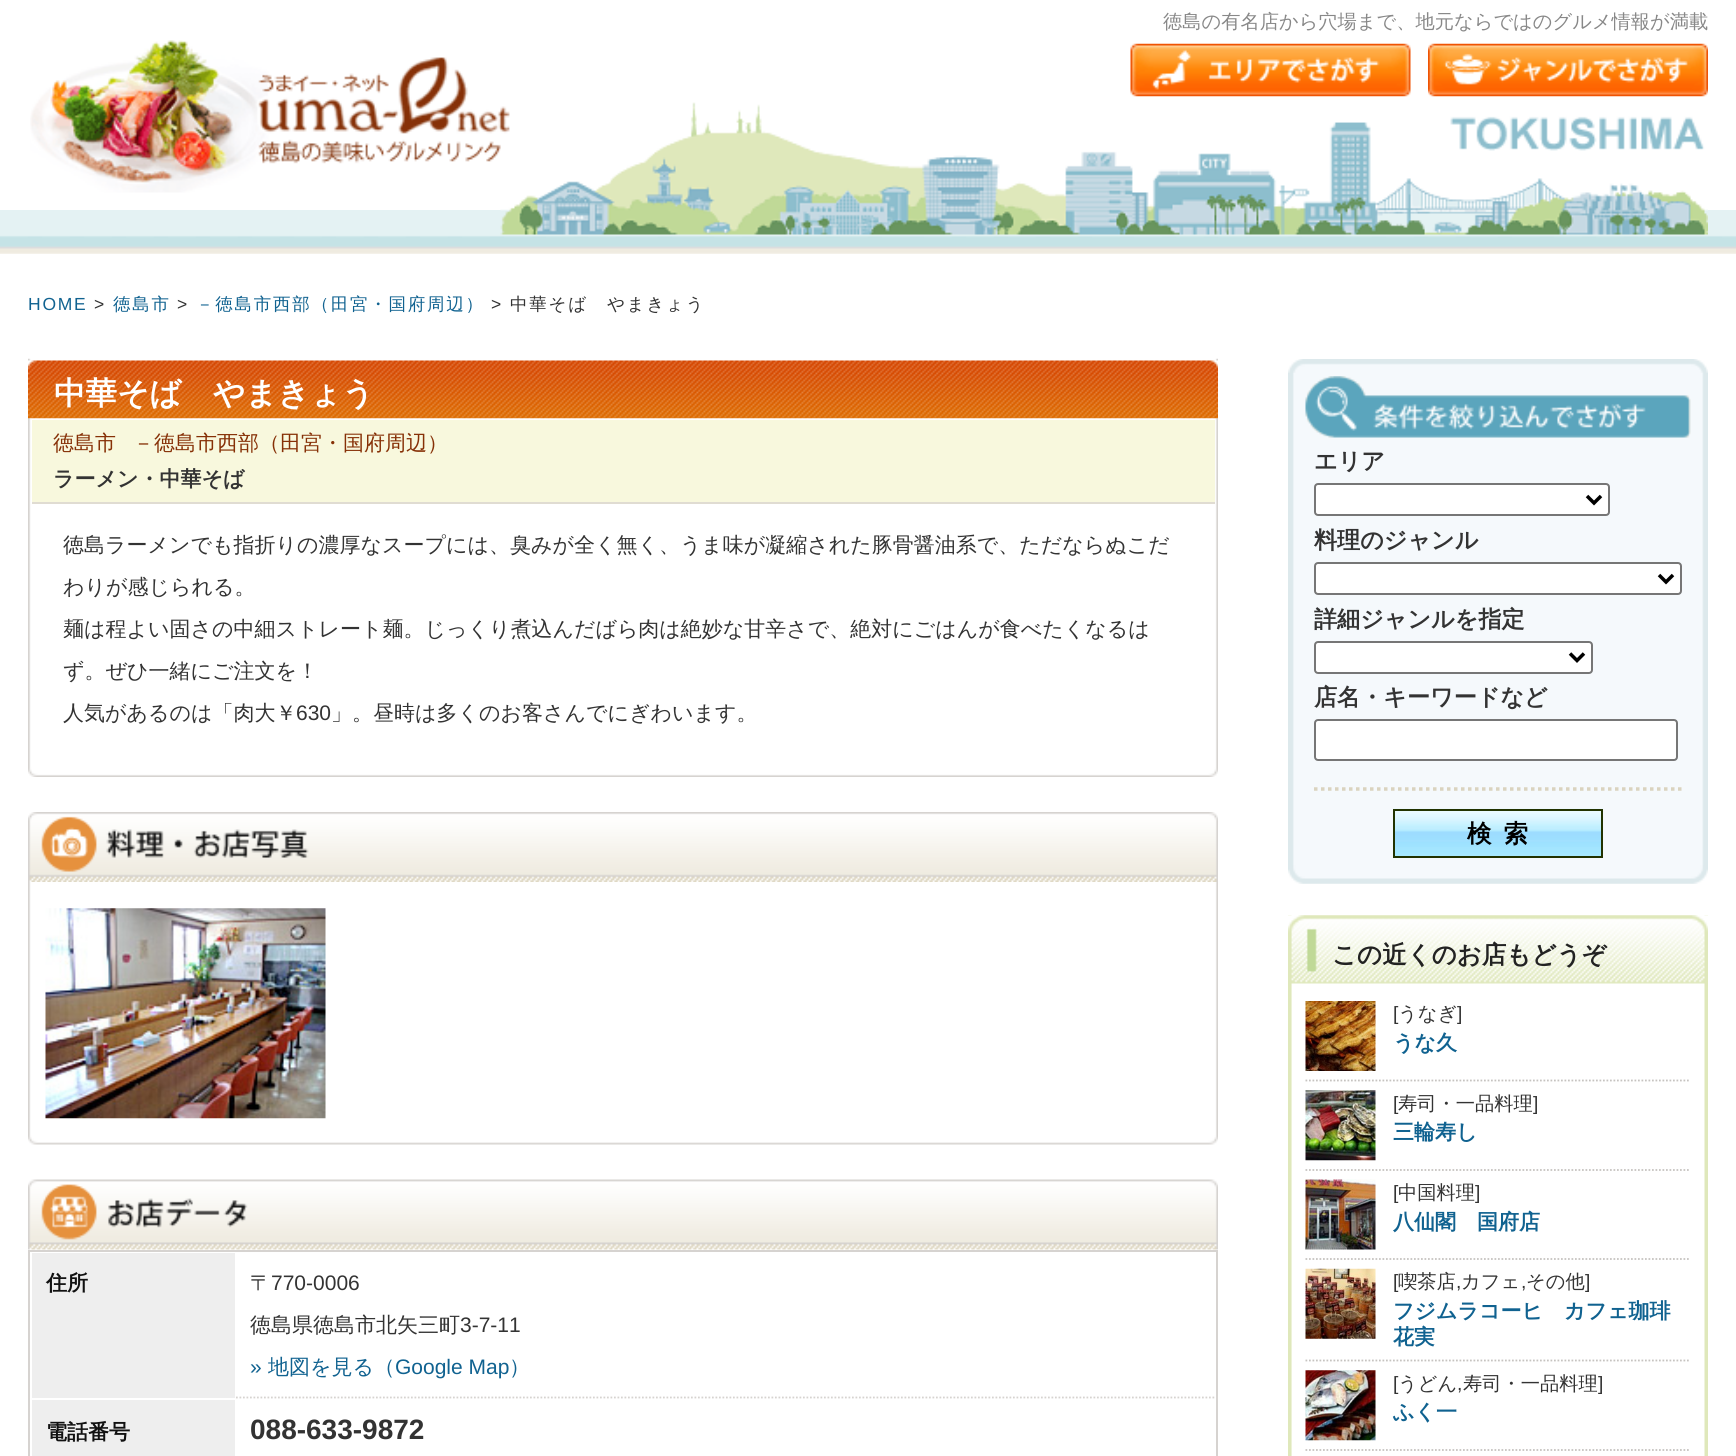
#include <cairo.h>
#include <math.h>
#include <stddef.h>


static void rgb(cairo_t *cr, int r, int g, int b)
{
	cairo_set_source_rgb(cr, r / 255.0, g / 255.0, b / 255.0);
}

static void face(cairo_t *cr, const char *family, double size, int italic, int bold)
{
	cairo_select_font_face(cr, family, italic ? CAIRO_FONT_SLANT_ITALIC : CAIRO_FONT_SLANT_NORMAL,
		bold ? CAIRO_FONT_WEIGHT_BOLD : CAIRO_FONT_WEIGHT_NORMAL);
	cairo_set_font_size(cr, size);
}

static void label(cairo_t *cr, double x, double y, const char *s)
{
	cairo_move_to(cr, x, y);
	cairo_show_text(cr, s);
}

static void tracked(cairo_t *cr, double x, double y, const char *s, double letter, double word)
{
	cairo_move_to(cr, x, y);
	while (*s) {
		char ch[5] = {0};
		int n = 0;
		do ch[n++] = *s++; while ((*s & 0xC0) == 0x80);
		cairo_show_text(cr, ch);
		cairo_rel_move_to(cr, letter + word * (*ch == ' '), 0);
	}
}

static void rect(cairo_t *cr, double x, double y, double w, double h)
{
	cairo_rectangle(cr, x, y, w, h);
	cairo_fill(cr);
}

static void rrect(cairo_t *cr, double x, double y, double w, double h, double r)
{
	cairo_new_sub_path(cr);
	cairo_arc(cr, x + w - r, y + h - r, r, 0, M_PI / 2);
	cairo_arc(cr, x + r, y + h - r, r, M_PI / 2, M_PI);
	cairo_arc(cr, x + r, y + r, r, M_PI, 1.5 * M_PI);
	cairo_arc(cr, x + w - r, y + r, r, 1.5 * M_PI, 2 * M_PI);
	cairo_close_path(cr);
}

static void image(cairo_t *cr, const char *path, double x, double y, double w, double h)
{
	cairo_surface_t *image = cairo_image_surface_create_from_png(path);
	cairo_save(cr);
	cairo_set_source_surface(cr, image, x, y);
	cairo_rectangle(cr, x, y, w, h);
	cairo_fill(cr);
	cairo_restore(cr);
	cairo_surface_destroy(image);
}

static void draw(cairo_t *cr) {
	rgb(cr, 255, 255, 255);
	cairo_paint(cr);
	image(cr, "image0.png", 0, 210, 1736, 44);
	image(cr, "image1.png", 500, 102, 1208, 133);
	face(cr, "WenQuanYi Zen Hei Medium", 19.25, 0, 0);
	rgb(cr, 136, 136, 136);
	label(cr, 1163, 28, "徳島の有名店から穴場まで、地元ならではのグルメ情報が満載");
	image(cr, "image2.png", 30, 40, 480, 153);
	image(cr, "image3.png", 1130, 43, 281, 54);
	image(cr, "image4.png", 1428, 43, 280, 54);
	face(cr, "Liberation Sans", 17.5, 0, 0);
	rgb(cr, 16, 98, 144);
	tracked(cr, 28, 310, "HOME", 1.75, 0);
	rgb(cr, 51, 51, 51);
	tracked(cr, 94, 310, ">", 1.75, 0);
	face(cr, "WenQuanYi Zen Hei Medium", 17.5, 0, 0);
	rgb(cr, 16, 98, 144);
	tracked(cr, 113, 310, "徳島市", 1.75, 0);
	face(cr, "Liberation Sans", 17.5, 0, 0);
	rgb(cr, 51, 51, 51);
	tracked(cr, 177, 310, ">", 1.75, 0);
	face(cr, "WenQuanYi Zen Hei Medium", 17.5, 0, 0);
	rgb(cr, 16, 98, 144);
	tracked(cr, 196, 310, "－徳島市西部（田宮・国府周辺）", 1.75, 0);
	face(cr, "Liberation Sans", 17.5, 0, 0);
	rgb(cr, 51, 51, 51);
	tracked(cr, 491, 310, ">", 1.75, 0);
	face(cr, "WenQuanYi Zen Hei Medium", 17.5, 0, 0);
	tracked(cr, 510, 310, "中華そば　やまきょう", 1.75, 0);
	image(cr, "image5.png", 28, 358, 1190, 419);
	image(cr, "image6.png", 28, 360, 1190, 59);
	face(cr, "WenQuanYi Zen Hei", 31.5, 0, 1);
	rgb(cr, 255, 255, 255);
	label(cr, 54, 404, "中華そば　やまきょう");
	rgb(cr, 248, 248, 221);
	rect(cr, 32, 420, 1183, 82);
	rgb(cr, 224, 220, 210);
	rect(cr, 32, 502, 1183, 2);
	face(cr, "WenQuanYi Zen Hei Medium", 21, 0, 0);
	rgb(cr, 134, 48, 6);
	label(cr, 53, 450, "徳島市");
	label(cr, 133, 450, "－徳島市西部（田宮・国府周辺）");
	face(cr, "WenQuanYi Zen Hei", 21, 0, 1);
	rgb(cr, 51, 51, 51);
	label(cr, 53, 486, "ラーメン・中華そば");
	face(cr, "WenQuanYi Zen Hei Medium", 21, 0, 0);
	label(cr, 63, 552, "徳島ラーメンでも指折りの濃厚なスープには、臭みが全く無く、うま味が凝縮された豚骨醤油系で、ただならぬこだ");
	label(cr, 63, 594, "わりが感じられる。");
	label(cr, 63, 636, "麺は程よい固さの中細ストレート麺。じっくり煮込んだばら肉は絶妙な甘辛さで、絶対にごはんが食べたくなるは");
	label(cr, 63, 678, "ず。ぜひ一緒にご注文を！");
	label(cr, 63, 720, "人気があるのは「肉大￥");
	face(cr, "Liberation Sans", 21, 0, 0);
	label(cr, 296, 720, "630");
	face(cr, "WenQuanYi Zen Hei Medium", 21, 0, 0);
	label(cr, 331, 720, "」。昼時は多くのお客さんでにぎわいます。");
	image(cr, "image7.png", 28, 812, 1190, 70);
	image(cr, "image8.png", 28, 882, 1190, 263);
	image(cr, "image9.png", 45, 908, 281, 211);
	image(cr, "image10.png", 28, 1179, 1190, 71);
	cairo_rectangle(cr, 29, 1251, 1188, 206);
	rgb(cr, 214, 211, 208);
	cairo_stroke(cr);
	rgb(cr, 238, 238, 238);
	rect(cr, 32, 1253, 203, 145);
	face(cr, "WenQuanYi Zen Hei", 21, 0, 1);
	rgb(cr, 17, 17, 17);
	label(cr, 46, 1290, "住所");
	cairo_new_path(cr);
	cairo_move_to(cr, 236, 1397.5);
	cairo_line_to(cr, 1214.5, 1397.5);
	rgb(cr, 214, 211, 208);
	cairo_set_line_width(cr, 1.8);
	cairo_set_dash(cr, (double[]){1.75, 1.75}, 2, 0);
	cairo_stroke(cr);
	face(cr, "WenQuanYi Zen Hei Medium", 21, 0, 0);
	rgb(cr, 51, 51, 51);
	label(cr, 250, 1290, "〒");
	face(cr, "Liberation Sans", 21, 0, 0);
	label(cr, 271, 1290, "770-0006");
	face(cr, "WenQuanYi Zen Hei Medium", 21, 0, 0);
	label(cr, 250, 1332, "徳島県徳島市北矢三町");
	face(cr, "Liberation Sans", 21, 0, 0);
	label(cr, 460, 1332, "3-7-11");
	rgb(cr, 16, 98, 144);
	label(cr, 250, 1374, "»");
	face(cr, "WenQuanYi Zen Hei Medium", 21, 0, 0);
	label(cr, 268, 1374, "地図を見る（");
	face(cr, "Liberation Sans", 21, 0, 0);
	label(cr, 395, 1374, "Google Map");
	face(cr, "WenQuanYi Zen Hei Medium", 21, 0, 0);
	label(cr, 509, 1374, "）");
	rgb(cr, 238, 238, 238);
	rect(cr, 32, 1400, 203, 56);
	face(cr, "WenQuanYi Zen Hei", 21, 0, 1);
	rgb(cr, 17, 17, 17);
	label(cr, 46, 1439, "電話番号");
	face(cr, "Liberation Sans", 28, 0, 1);
	rgb(cr, 51, 51, 51);
	label(cr, 250, 1439, "088-633-9872");
	image(cr, "image11.png", 1288, 373, 420, 511);
	image(cr, "image12.png", 1288, 359, 420, 14);
	image(cr, "image13.png", 1305, 376, 386, 62);
	face(cr, "WenQuanYi Zen Hei", 23.1, 0, 1);
	label(cr, 1314, 469, "エリア");
	rgb(cr, 255, 255, 255);
	rrect(cr, 1315, 484, 294, 31, 3);
	cairo_fill_preserve(cr);
	rgb(cr, 118, 118, 118);
	cairo_set_line_width(cr, 2);
	cairo_set_dash(cr, NULL, 0, 0);
	cairo_stroke(cr);
	cairo_new_path(cr);
	cairo_move_to(cr, 1587, 496);
	cairo_line_to(cr, 1594, 503);
	cairo_line_to(cr, 1601, 496);
	rgb(cr, 0, 0, 0);
	cairo_set_line_width(cr, 3.5);
	cairo_stroke(cr);
	rgb(cr, 51, 51, 51);
	label(cr, 1314, 548, "料理のジャンル");
	rgb(cr, 255, 255, 255);
	rrect(cr, 1315, 563, 366, 31, 3);
	cairo_fill_preserve(cr);
	rgb(cr, 118, 118, 118);
	cairo_set_line_width(cr, 2);
	cairo_stroke(cr);
	cairo_new_path(cr);
	cairo_move_to(cr, 1659, 575);
	cairo_line_to(cr, 1666, 582);
	cairo_line_to(cr, 1673, 575);
	rgb(cr, 0, 0, 0);
	cairo_set_line_width(cr, 3.5);
	cairo_stroke(cr);
	rgb(cr, 51, 51, 51);
	label(cr, 1314, 627, "詳細ジャンルを指定");
	rgb(cr, 255, 255, 255);
	rrect(cr, 1315, 642, 277, 31, 3);
	cairo_fill_preserve(cr);
	rgb(cr, 118, 118, 118);
	cairo_set_line_width(cr, 2);
	cairo_stroke(cr);
	cairo_new_path(cr);
	cairo_move_to(cr, 1570, 653.5);
	cairo_line_to(cr, 1577, 660.5);
	cairo_line_to(cr, 1584, 653.5);
	rgb(cr, 0, 0, 0);
	cairo_set_line_width(cr, 3.5);
	cairo_stroke(cr);
	rgb(cr, 51, 51, 51);
	label(cr, 1314, 705, "店名・キーワードなど");
	rgb(cr, 255, 255, 255);
	rrect(cr, 1315, 720, 362, 40, 3);
	cairo_fill_preserve(cr);
	rgb(cr, 118, 118, 118);
	cairo_set_line_width(cr, 2);
	cairo_stroke(cr);
	cairo_new_path(cr);
	cairo_move_to(cr, 1314, 789);
	cairo_line_to(cr, 1682, 789);
	rgb(cr, 218, 211, 191);
	cairo_set_line_width(cr, 3.5);
	cairo_set_dash(cr, (double[]){3.5, 3.5}, 2, 0);
	cairo_stroke(cr);
	image(cr, "image14.png", 1393, 808, 210, 48);
	cairo_rectangle(cr, 1394, 810, 208, 47);
	rgb(cr, 34, 51, 0);
	cairo_set_line_width(cr, 2);
	cairo_set_dash(cr, NULL, 0, 0);
	cairo_stroke(cr);
	face(cr, "WenQuanYi Zen Hei", 24.5, 0, 1);
	rgb(cr, 0, 0, 0);
	tracked(cr, 1467, 842, "検索", 12, 0);
	image(cr, "image15.png", 1288, 915, 420, 541);
	image(cr, "image16.png", 1288, 915, 420, 69);
	rgb(cr, 34, 34, 34);
	label(cr, 1332, 963, "この近くのお店もどうぞ");
	cairo_new_path(cr);
	cairo_move_to(cr, 1305.5, 1080.5);
	cairo_line_to(cr, 1690.5, 1080.5);
	rgb(cr, 198, 195, 192);
	cairo_set_line_width(cr, 1.8);
	cairo_set_dash(cr, (double[]){1.75, 1.75}, 2, 0);
	cairo_stroke(cr);
	image(cr, "image17.png", 1305, 1001, 71, 70);
	face(cr, "Liberation Sans", 19.25, 0, 0);
	rgb(cr, 51, 51, 51);
	label(cr, 1393, 1020, "[");
	face(cr, "WenQuanYi Zen Hei Medium", 19.25, 0, 0);
	label(cr, 1398, 1020, "うなぎ");
	face(cr, "Liberation Sans", 19.25, 0, 0);
	label(cr, 1457, 1020, "]");
	face(cr, "WenQuanYi Zen Hei", 21, 0, 1);
	rgb(cr, 16, 98, 144);
	label(cr, 1393, 1050, "うな久");
	cairo_new_path(cr);
	cairo_move_to(cr, 1305.5, 1170);
	cairo_line_to(cr, 1690.5, 1170);
	rgb(cr, 198, 195, 192);
	cairo_stroke(cr);
	image(cr, "image18.png", 1305, 1090, 71, 71);
	face(cr, "Liberation Sans", 19.25, 0, 0);
	rgb(cr, 51, 51, 51);
	label(cr, 1393, 1110, "[");
	face(cr, "WenQuanYi Zen Hei Medium", 19.25, 0, 0);
	label(cr, 1398, 1110, "寿司・一品料理");
	face(cr, "Liberation Sans", 19.25, 0, 0);
	label(cr, 1533, 1110, "]");
	face(cr, "WenQuanYi Zen Hei", 21, 0, 1);
	rgb(cr, 16, 98, 144);
	label(cr, 1393, 1139, "三輪寿し");
	cairo_new_path(cr);
	cairo_move_to(cr, 1305.5, 1259);
	cairo_line_to(cr, 1690.5, 1259);
	rgb(cr, 198, 195, 192);
	cairo_stroke(cr);
	image(cr, "image19.png", 1305, 1179, 71, 71);
	face(cr, "Liberation Sans", 19.25, 0, 0);
	rgb(cr, 51, 51, 51);
	label(cr, 1393, 1199, "[");
	face(cr, "WenQuanYi Zen Hei Medium", 19.25, 0, 0);
	label(cr, 1398, 1199, "中国料理");
	face(cr, "Liberation Sans", 19.25, 0, 0);
	label(cr, 1475, 1199, "]");
	face(cr, "WenQuanYi Zen Hei", 21, 0, 1);
	rgb(cr, 16, 98, 144);
	label(cr, 1393, 1229, "八仙閣　国府店");
	cairo_new_path(cr);
	cairo_move_to(cr, 1305.5, 1360.5);
	cairo_line_to(cr, 1690.5, 1360.5);
	rgb(cr, 198, 195, 192);
	cairo_stroke(cr);
	image(cr, "image20.png", 1305, 1268, 71, 71);
	face(cr, "Liberation Sans", 19.25, 0, 0);
	rgb(cr, 51, 51, 51);
	label(cr, 1393, 1288, "[");
	face(cr, "WenQuanYi Zen Hei Medium", 19.25, 0, 0);
	label(cr, 1398, 1288, "喫茶店");
	face(cr, "Liberation Sans", 19.25, 0, 0);
	label(cr, 1456, 1288, ",");
	face(cr, "WenQuanYi Zen Hei Medium", 19.25, 0, 0);
	label(cr, 1461, 1288, "カフェ");
	face(cr, "Liberation Sans", 19.25, 0, 0);
	label(cr, 1521, 1288, ",");
	face(cr, "WenQuanYi Zen Hei Medium", 19.25, 0, 0);
	label(cr, 1526, 1288, "その他");
	face(cr, "Liberation Sans", 19.25, 0, 0);
	label(cr, 1585, 1288, "]");
	face(cr, "WenQuanYi Zen Hei", 21, 0, 1);
	rgb(cr, 16, 98, 144);
	label(cr, 1393, 1318, "フジムラコーヒ　カフェ珈琲");
	label(cr, 1393, 1344, "花実");
	cairo_new_path(cr);
	cairo_move_to(cr, 1305.5, 1450);
	cairo_line_to(cr, 1690.5, 1450);
	rgb(cr, 198, 195, 192);
	cairo_stroke(cr);
	image(cr, "image21.png", 1305, 1370, 71, 71);
	face(cr, "Liberation Sans", 19.25, 0, 0);
	rgb(cr, 51, 51, 51);
	label(cr, 1393, 1390, "[");
	face(cr, "WenQuanYi Zen Hei Medium", 19.25, 0, 0);
	label(cr, 1398, 1390, "うどん");
	face(cr, "Liberation Sans", 19.25, 0, 0);
	label(cr, 1457, 1390, ",");
	face(cr, "WenQuanYi Zen Hei Medium", 19.25, 0, 0);
	label(cr, 1463, 1390, "寿司・一品料理");
	face(cr, "Liberation Sans", 19.25, 0, 0);
	label(cr, 1598, 1390, "]");
	face(cr, "WenQuanYi Zen Hei", 21, 0, 1);
	rgb(cr, 16, 98, 144);
	label(cr, 1393, 1419, "ふく一");
}

int main(void) {
	cairo_surface_t *surface = cairo_image_surface_create(CAIRO_FORMAT_RGB24, 1736, 1456);
	cairo_t *cr = cairo_create(surface);
	cairo_font_options_t *options = cairo_font_options_create();
	cairo_font_options_set_hint_metrics(options, CAIRO_HINT_METRICS_OFF);
	cairo_font_options_set_hint_style(options, CAIRO_HINT_STYLE_NONE);
	cairo_set_font_options(cr, options);
	cairo_set_miter_limit(cr, 4);
	draw(cr);
	cairo_surface_write_to_png(surface, "render.png");
	cairo_font_options_destroy(options);
	cairo_destroy(cr);
	cairo_surface_destroy(surface);
	return 0;
}
